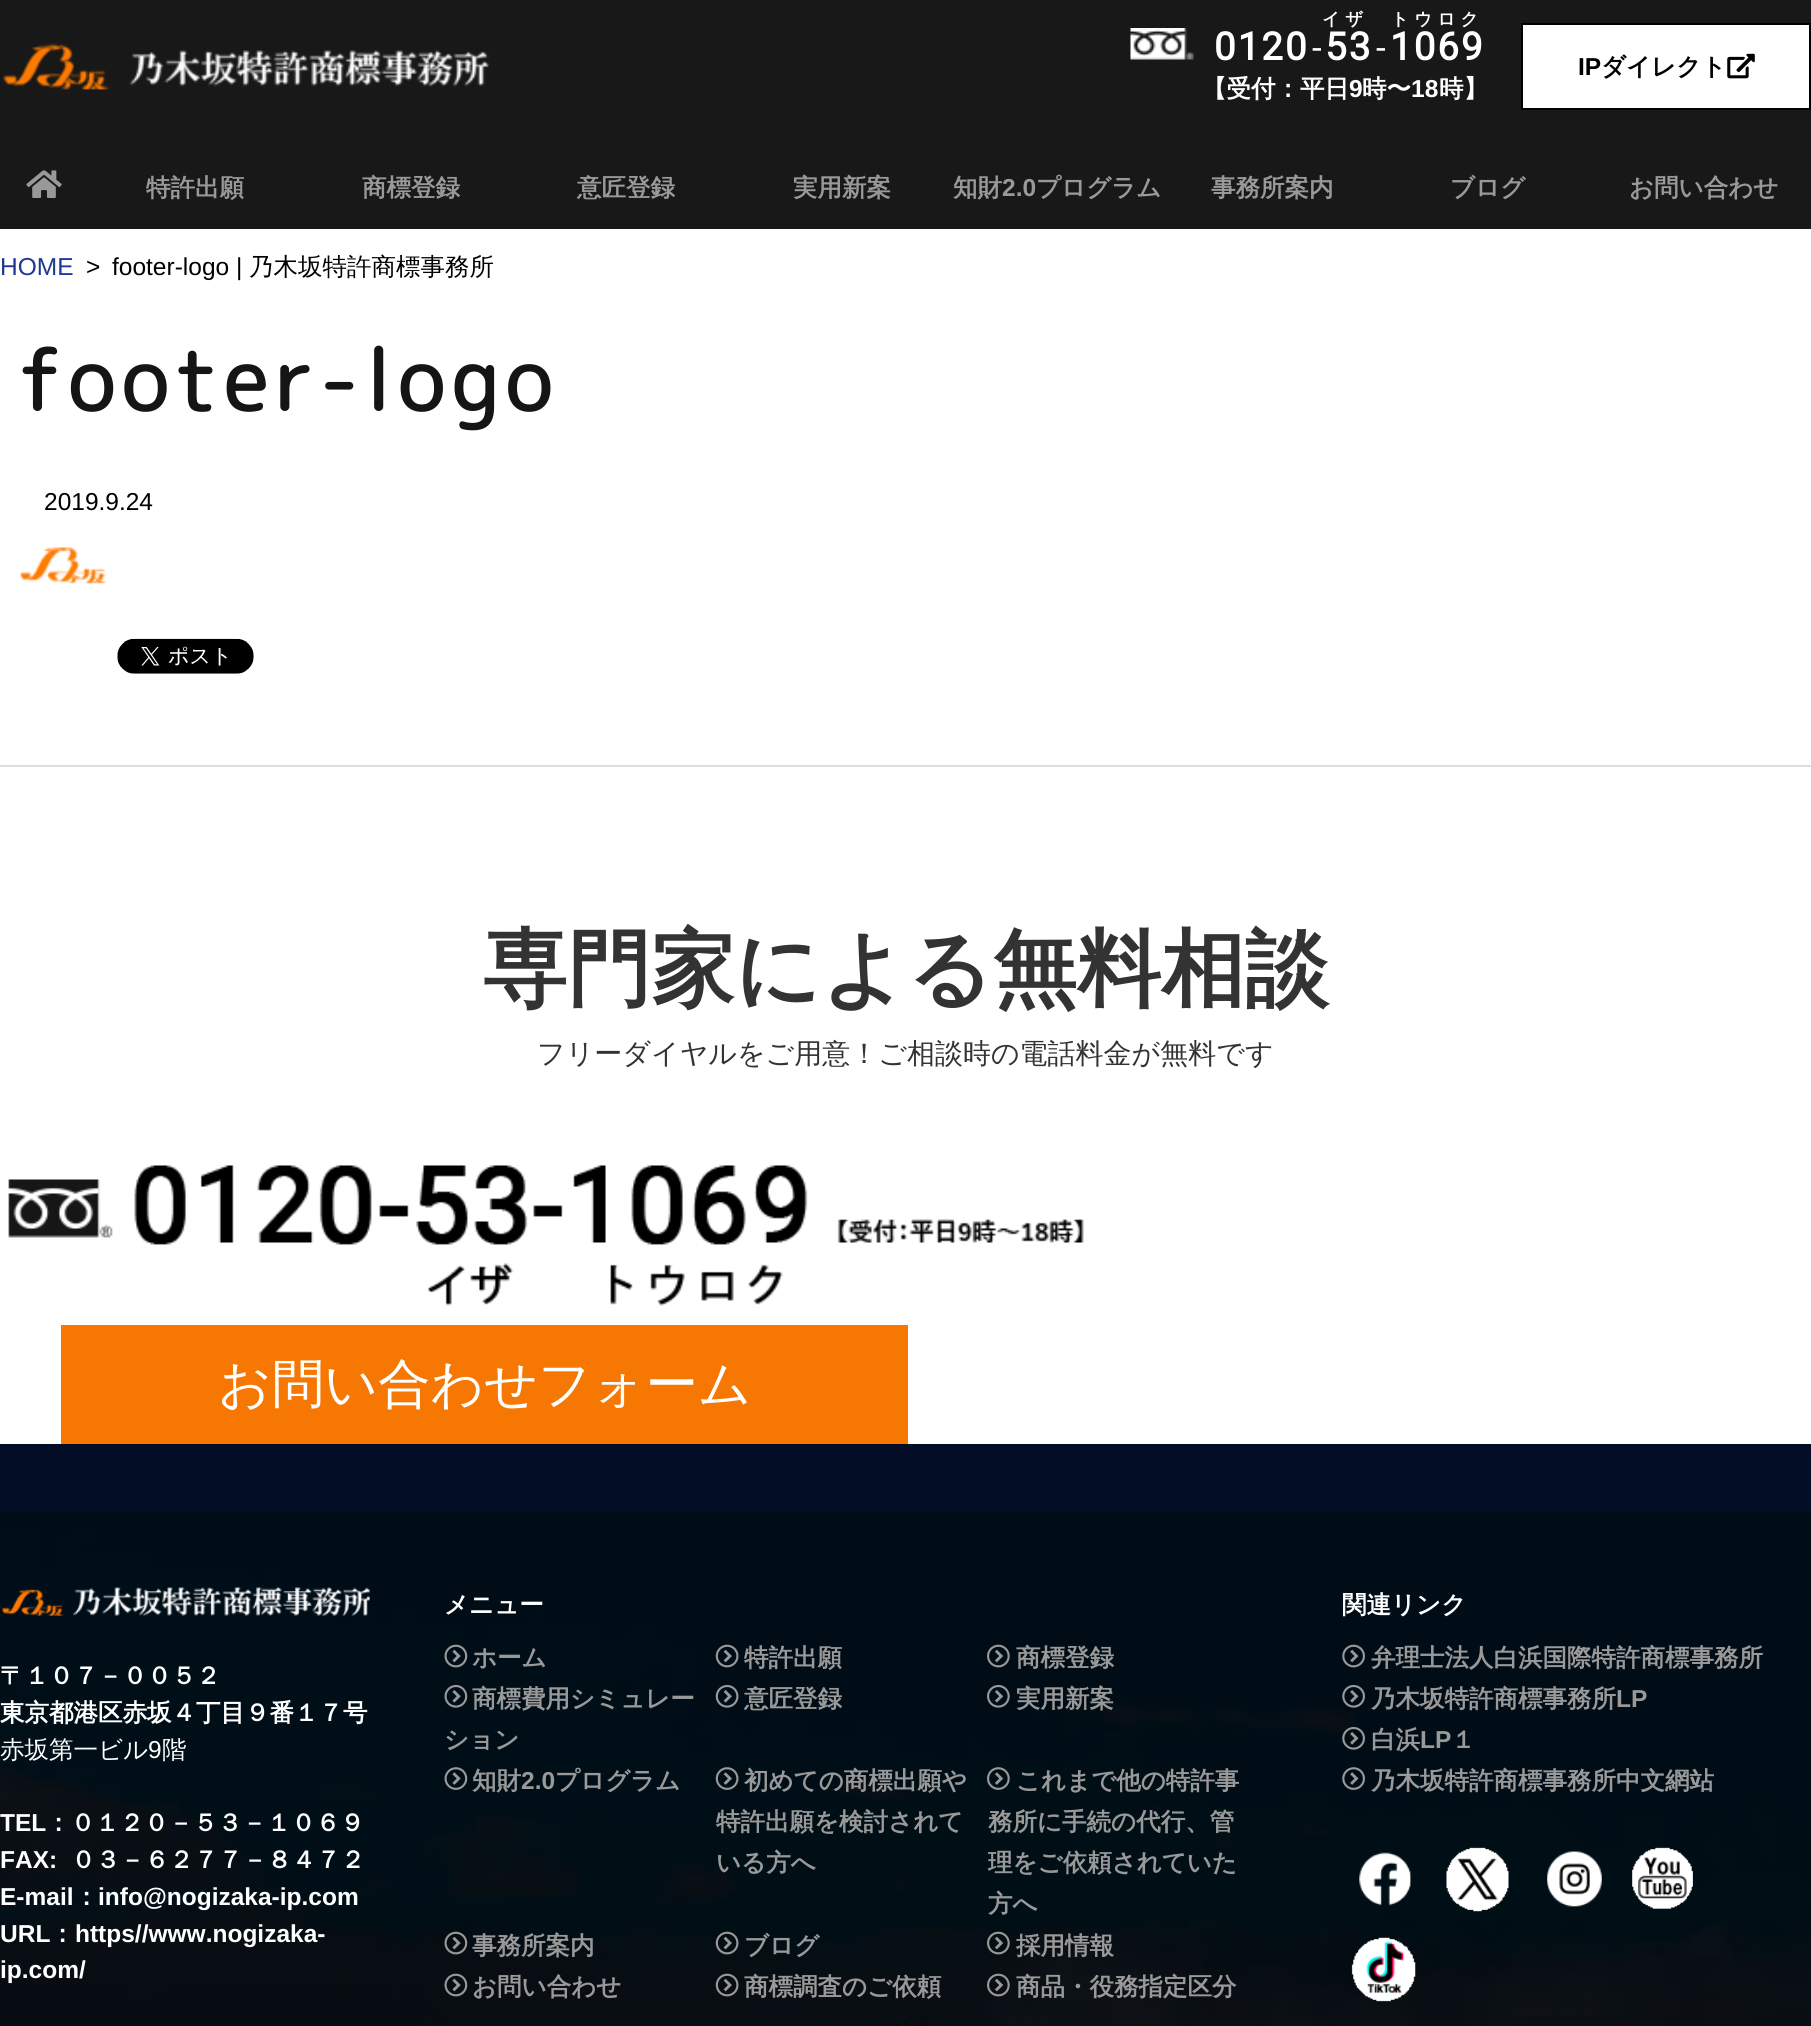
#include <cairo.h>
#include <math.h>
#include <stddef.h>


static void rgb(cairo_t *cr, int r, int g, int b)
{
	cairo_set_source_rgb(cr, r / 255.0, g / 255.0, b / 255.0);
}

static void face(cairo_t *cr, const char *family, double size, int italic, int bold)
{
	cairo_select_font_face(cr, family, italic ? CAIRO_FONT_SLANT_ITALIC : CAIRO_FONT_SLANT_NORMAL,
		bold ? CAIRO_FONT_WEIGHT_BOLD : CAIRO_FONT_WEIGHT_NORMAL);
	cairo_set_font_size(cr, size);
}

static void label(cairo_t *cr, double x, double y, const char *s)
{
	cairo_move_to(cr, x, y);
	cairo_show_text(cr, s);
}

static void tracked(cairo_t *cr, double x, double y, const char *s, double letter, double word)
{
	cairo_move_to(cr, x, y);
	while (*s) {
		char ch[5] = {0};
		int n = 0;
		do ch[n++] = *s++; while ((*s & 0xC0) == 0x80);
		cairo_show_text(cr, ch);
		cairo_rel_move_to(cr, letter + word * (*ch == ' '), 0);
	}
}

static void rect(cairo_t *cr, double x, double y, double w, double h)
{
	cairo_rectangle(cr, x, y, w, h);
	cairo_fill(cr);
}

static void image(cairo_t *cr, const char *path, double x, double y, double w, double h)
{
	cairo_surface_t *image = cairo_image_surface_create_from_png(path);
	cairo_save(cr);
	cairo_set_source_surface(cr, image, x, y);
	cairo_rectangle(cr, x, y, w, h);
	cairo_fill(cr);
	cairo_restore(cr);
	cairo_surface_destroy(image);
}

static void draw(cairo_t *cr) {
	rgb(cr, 255, 255, 255);
	cairo_paint(cr);
	rgb(cr, 24, 24, 24);
	rect(cr, 0, 0, 1811, 229);
	image(cr, "image0.png", 3, 43, 486, 47);
	face(cr, "WenQuanYi Zen Hei", 17.5, 0, 1);
	rgb(cr, 255, 255, 255);
	tracked(cr, 1322, 25, "イザ　トウロク", 5.25, 0);
	image(cr, "image1.png", 1130, 28, 64, 32);
	face(cr, "Roboto", 38.5, 0, 1);
	tracked(cr, 1214, 60, "0120", 2, 0);
	face(cr, "Roboto", 35, 0, 0);
	label(cr, 1312, 60, "-");
	face(cr, "Roboto", 38.5, 0, 1);
	tracked(cr, 1325, 60, "53", 2, 0);
	face(cr, "Roboto", 35, 0, 0);
	label(cr, 1376, 60, "-");
	face(cr, "Roboto", 38.5, 0, 1);
	tracked(cr, 1390, 60, "1069", 2, 0);
	face(cr, "WenQuanYi Zen Hei", 24.5, 0, 1);
	label(cr, 1202, 97, "【受付：平日");
	face(cr, "Liberation Sans", 24.5, 0, 1);
	label(cr, 1349, 97, "9");
	face(cr, "WenQuanYi Zen Hei", 24.5, 0, 1);
	label(cr, 1362, 97, "時〜");
	face(cr, "Liberation Sans", 24.5, 0, 1);
	label(cr, 1411, 97, "18");
	face(cr, "WenQuanYi Zen Hei", 24.5, 0, 1);
	label(cr, 1439, 97, "時】");
	cairo_rectangle(cr, 1522, 24, 288, 85);
	cairo_fill_preserve(cr);
	rgb(cr, 0, 0, 0);
	cairo_stroke(cr);
	face(cr, "Liberation Sans", 24.5, 0, 1);
	label(cr, 1578, 75, "IP");
	face(cr, "WenQuanYi Zen Hei", 24.5, 0, 1);
	label(cr, 1601, 75, "ダイレクト");
	image(cr, "image2.png", 1727, 53, 28, 26);
	image(cr, "image3.png", 26, 170, 36, 28);
	rgb(cr, 153, 153, 153);
	label(cr, 146, 196, "特許出願");
	label(cr, 362, 196, "商標登録");
	label(cr, 577, 196, "意匠登録");
	label(cr, 793, 196, "実用新案");
	label(cr, 953, 196, "知財");
	face(cr, "Liberation Sans", 24.5, 0, 1);
	label(cr, 1002, 196, "2.0");
	face(cr, "WenQuanYi Zen Hei", 24.5, 0, 1);
	label(cr, 1036, 196, "プログラム");
	label(cr, 1211, 196, "事務所案内");
	label(cr, 1450, 196, "ブログ");
	label(cr, 1629, 196, "お問い合わせ");
	face(cr, "Liberation Sans", 24.5, 0, 0);
	rgb(cr, 29, 57, 148);
	label(cr, 0, 275, "HOME");
	rgb(cr, 0, 0, 0);
	label(cr, 86, 275, ">");
	label(cr, 112, 275, "footer-logo |");
	face(cr, "WenQuanYi Zen Hei Medium", 24.5, 0, 0);
	label(cr, 249, 275, "乃木坂特許商標事務所");
	face(cr, "Rounded Mplus 1c", 84, 0, 1);
	rgb(cr, 21, 21, 21);
	tracked(cr, 18, 411, "footer-logo", 6.75, 0);
	face(cr, "Liberation Sans", 24.5, 0, 0);
	rgb(cr, 0, 0, 0);
	label(cr, 44, 510, "2019.9.24");
	image(cr, "image4.png", 20, 547, 87, 37);
	image(cr, "image5.png", 117, 638, 137, 36);
	rgb(cr, 221, 221, 221);
	rect(cr, 0, 765, 1811, 2);
	face(cr, "WenQuanYi Zen Hei", 84, 0, 1);
	rgb(cr, 51, 51, 51);
	label(cr, 483, 998, "専門家による無料相談");
	face(cr, "WenQuanYi Zen Hei Medium", 28, 0, 0);
	label(cr, 537, 1063, "フリーダイヤルをご用意！ご相談時の電話料金が無料です");
	image(cr, "image6.png", 8, 1165, 1076, 141);
	rgb(cr, 246, 119, 1);
	rect(cr, 61, 1325, 847, 119);
	face(cr, "WenQuanYi Zen Hei Medium", 52.5, 0, 0);
	rgb(cr, 255, 255, 255);
	label(cr, 218, 1402, "お問い合わせフォーム");
	rgb(cr, 3, 13, 38);
	rect(cr, 0, 1444, 1811, 68);
	image(cr, "image7.png", 0, 1512, 1811, 514);
	image(cr, "image8.png", 2, 1587, 368, 29);
	face(cr, "WenQuanYi Zen Hei", 24.5, 0, 1);
	rgb(cr, 255, 255, 255);
	label(cr, 0, 1684, "〒１０７－００５２");
	label(cr, 0, 1721, "東京都港区赤坂４丁目９番１７号");
	face(cr, "WenQuanYi Zen Hei Medium", 24.5, 0, 0);
	label(cr, 0, 1758, "赤坂第一ビル");
	face(cr, "Liberation Sans", 24.5, 0, 0);
	label(cr, 148, 1758, "9");
	face(cr, "WenQuanYi Zen Hei Medium", 24.5, 0, 0);
	label(cr, 162, 1758, "階");
	face(cr, "Liberation Sans", 24.5, 0, 1);
	label(cr, 0, 1831, "TEL");
	face(cr, "WenQuanYi Zen Hei", 24.5, 0, 1);
	label(cr, 46, 1831, "：０１２０－５３－１０６９");
	face(cr, "Liberation Sans", 24.5, 0, 1);
	label(cr, 0, 1868, "FAX:");
	face(cr, "WenQuanYi Zen Hei", 24.5, 0, 1);
	label(cr, 71, 1868, "０３－６２７７－８４７２");
	face(cr, "Liberation Sans", 24.5, 0, 1);
	label(cr, 0, 1905, "E-mail");
	face(cr, "WenQuanYi Zen Hei", 24.5, 0, 1);
	label(cr, 74, 1905, "：");
	face(cr, "Liberation Sans", 24.5, 0, 1);
	label(cr, 98, 1905, "info@nogizaka-ip.com");
	label(cr, 0, 1942, "URL");
	face(cr, "WenQuanYi Zen Hei", 24.5, 0, 1);
	label(cr, 50, 1942, "：");
	face(cr, "Liberation Sans", 24.5, 0, 1);
	label(cr, 75, 1942, "https//www.nogizaka-");
	label(cr, 0, 1978, "ip.com/");
	face(cr, "WenQuanYi Zen Hei", 24.5, 0, 1);
	label(cr, 444, 1613, "メニュー");
	image(cr, "image9.png", 444, 1644, 24, 24);
	rgb(cr, 153, 153, 153);
	label(cr, 472, 1666, "ホーム");
	image(cr, "image10.png", 715, 1644, 24, 24);
	label(cr, 744, 1666, "特許出願");
	image(cr, "image11.png", 987, 1644, 23, 24);
	label(cr, 1016, 1666, "商標登録");
	image(cr, "image12.png", 444, 1684, 24, 24);
	label(cr, 472, 1707, "商標費用シミュレー");
	label(cr, 444, 1748, "ション");
	image(cr, "image13.png", 715, 1684, 24, 24);
	label(cr, 744, 1707, "意匠登録");
	image(cr, "image14.png", 987, 1684, 23, 24);
	label(cr, 1016, 1707, "実用新案");
	image(cr, "image15.png", 444, 1767, 24, 23);
	label(cr, 472, 1789, "知財");
	face(cr, "Liberation Sans", 24.5, 0, 1);
	label(cr, 521, 1789, "2.0");
	face(cr, "WenQuanYi Zen Hei", 24.5, 0, 1);
	label(cr, 555, 1789, "プログラム");
	image(cr, "image16.png", 715, 1767, 24, 23);
	label(cr, 744, 1789, "初めての商標出願や");
	label(cr, 716, 1830, "特許出願を検討されて");
	label(cr, 716, 1871, "いる方へ");
	image(cr, "image17.png", 987, 1767, 23, 23);
	label(cr, 1016, 1789, "これまで他の特許事");
	label(cr, 988, 1830, "務所に手続の代行、管");
	label(cr, 988, 1871, "理をご依頼されていた");
	label(cr, 988, 1912, "方へ");
	image(cr, "image18.png", 444, 1931, 24, 24);
	label(cr, 472, 1954, "事務所案内");
	image(cr, "image19.png", 715, 1931, 24, 24);
	label(cr, 744, 1954, "ブログ");
	image(cr, "image20.png", 987, 1931, 23, 24);
	label(cr, 1016, 1954, "採用情報");
	image(cr, "image21.png", 444, 1973, 24, 24);
	label(cr, 472, 1995, "お問い合わせ");
	image(cr, "image22.png", 715, 1973, 24, 24);
	label(cr, 744, 1995, "商標調査のご依頼");
	image(cr, "image23.png", 987, 1973, 23, 24);
	label(cr, 1016, 1995, "商品・役務指定区分");
	rgb(cr, 255, 255, 255);
	label(cr, 1342, 1613, "関連リンク");
	image(cr, "image24.png", 1342, 1644, 23, 24);
	rgb(cr, 153, 153, 153);
	label(cr, 1371, 1666, "弁理士法人白浜国際特許商標事務所");
	image(cr, "image25.png", 1342, 1684, 23, 24);
	label(cr, 1371, 1707, "乃木坂特許商標事務所");
	face(cr, "Liberation Sans", 24.5, 0, 1);
	label(cr, 1616, 1707, "LP");
	image(cr, "image26.png", 1342, 1726, 23, 24);
	face(cr, "WenQuanYi Zen Hei", 24.5, 0, 1);
	label(cr, 1371, 1748, "白浜");
	face(cr, "Liberation Sans", 24.5, 0, 1);
	label(cr, 1420, 1748, "LP");
	face(cr, "WenQuanYi Zen Hei", 24.5, 0, 1);
	label(cr, 1451, 1748, "１");
	image(cr, "image27.png", 1342, 1767, 23, 23);
	label(cr, 1371, 1789, "乃木坂特許商標事務所中文網站");
	image(cr, "image28.png", 1359, 1852, 52, 54);
	image(cr, "image29.png", 1446, 1847, 63, 65);
	image(cr, "image30.png", 1547, 1851, 55, 56);
	image(cr, "image31.png", 1632, 1847, 61, 62);
	image(cr, "image32.png", 1351, 1937, 65, 65);
}

int main(void) {
	cairo_surface_t *surface = cairo_image_surface_create(CAIRO_FORMAT_RGB24, 1811, 2026);
	cairo_t *cr = cairo_create(surface);
	cairo_font_options_t *options = cairo_font_options_create();
	cairo_font_options_set_hint_metrics(options, CAIRO_HINT_METRICS_OFF);
	cairo_font_options_set_hint_style(options, CAIRO_HINT_STYLE_NONE);
	cairo_set_font_options(cr, options);
	cairo_set_miter_limit(cr, 4);
	draw(cr);
	cairo_surface_write_to_png(surface, "render.png");
	cairo_font_options_destroy(options);
	cairo_destroy(cr);
	cairo_surface_destroy(surface);
	return 0;
}
